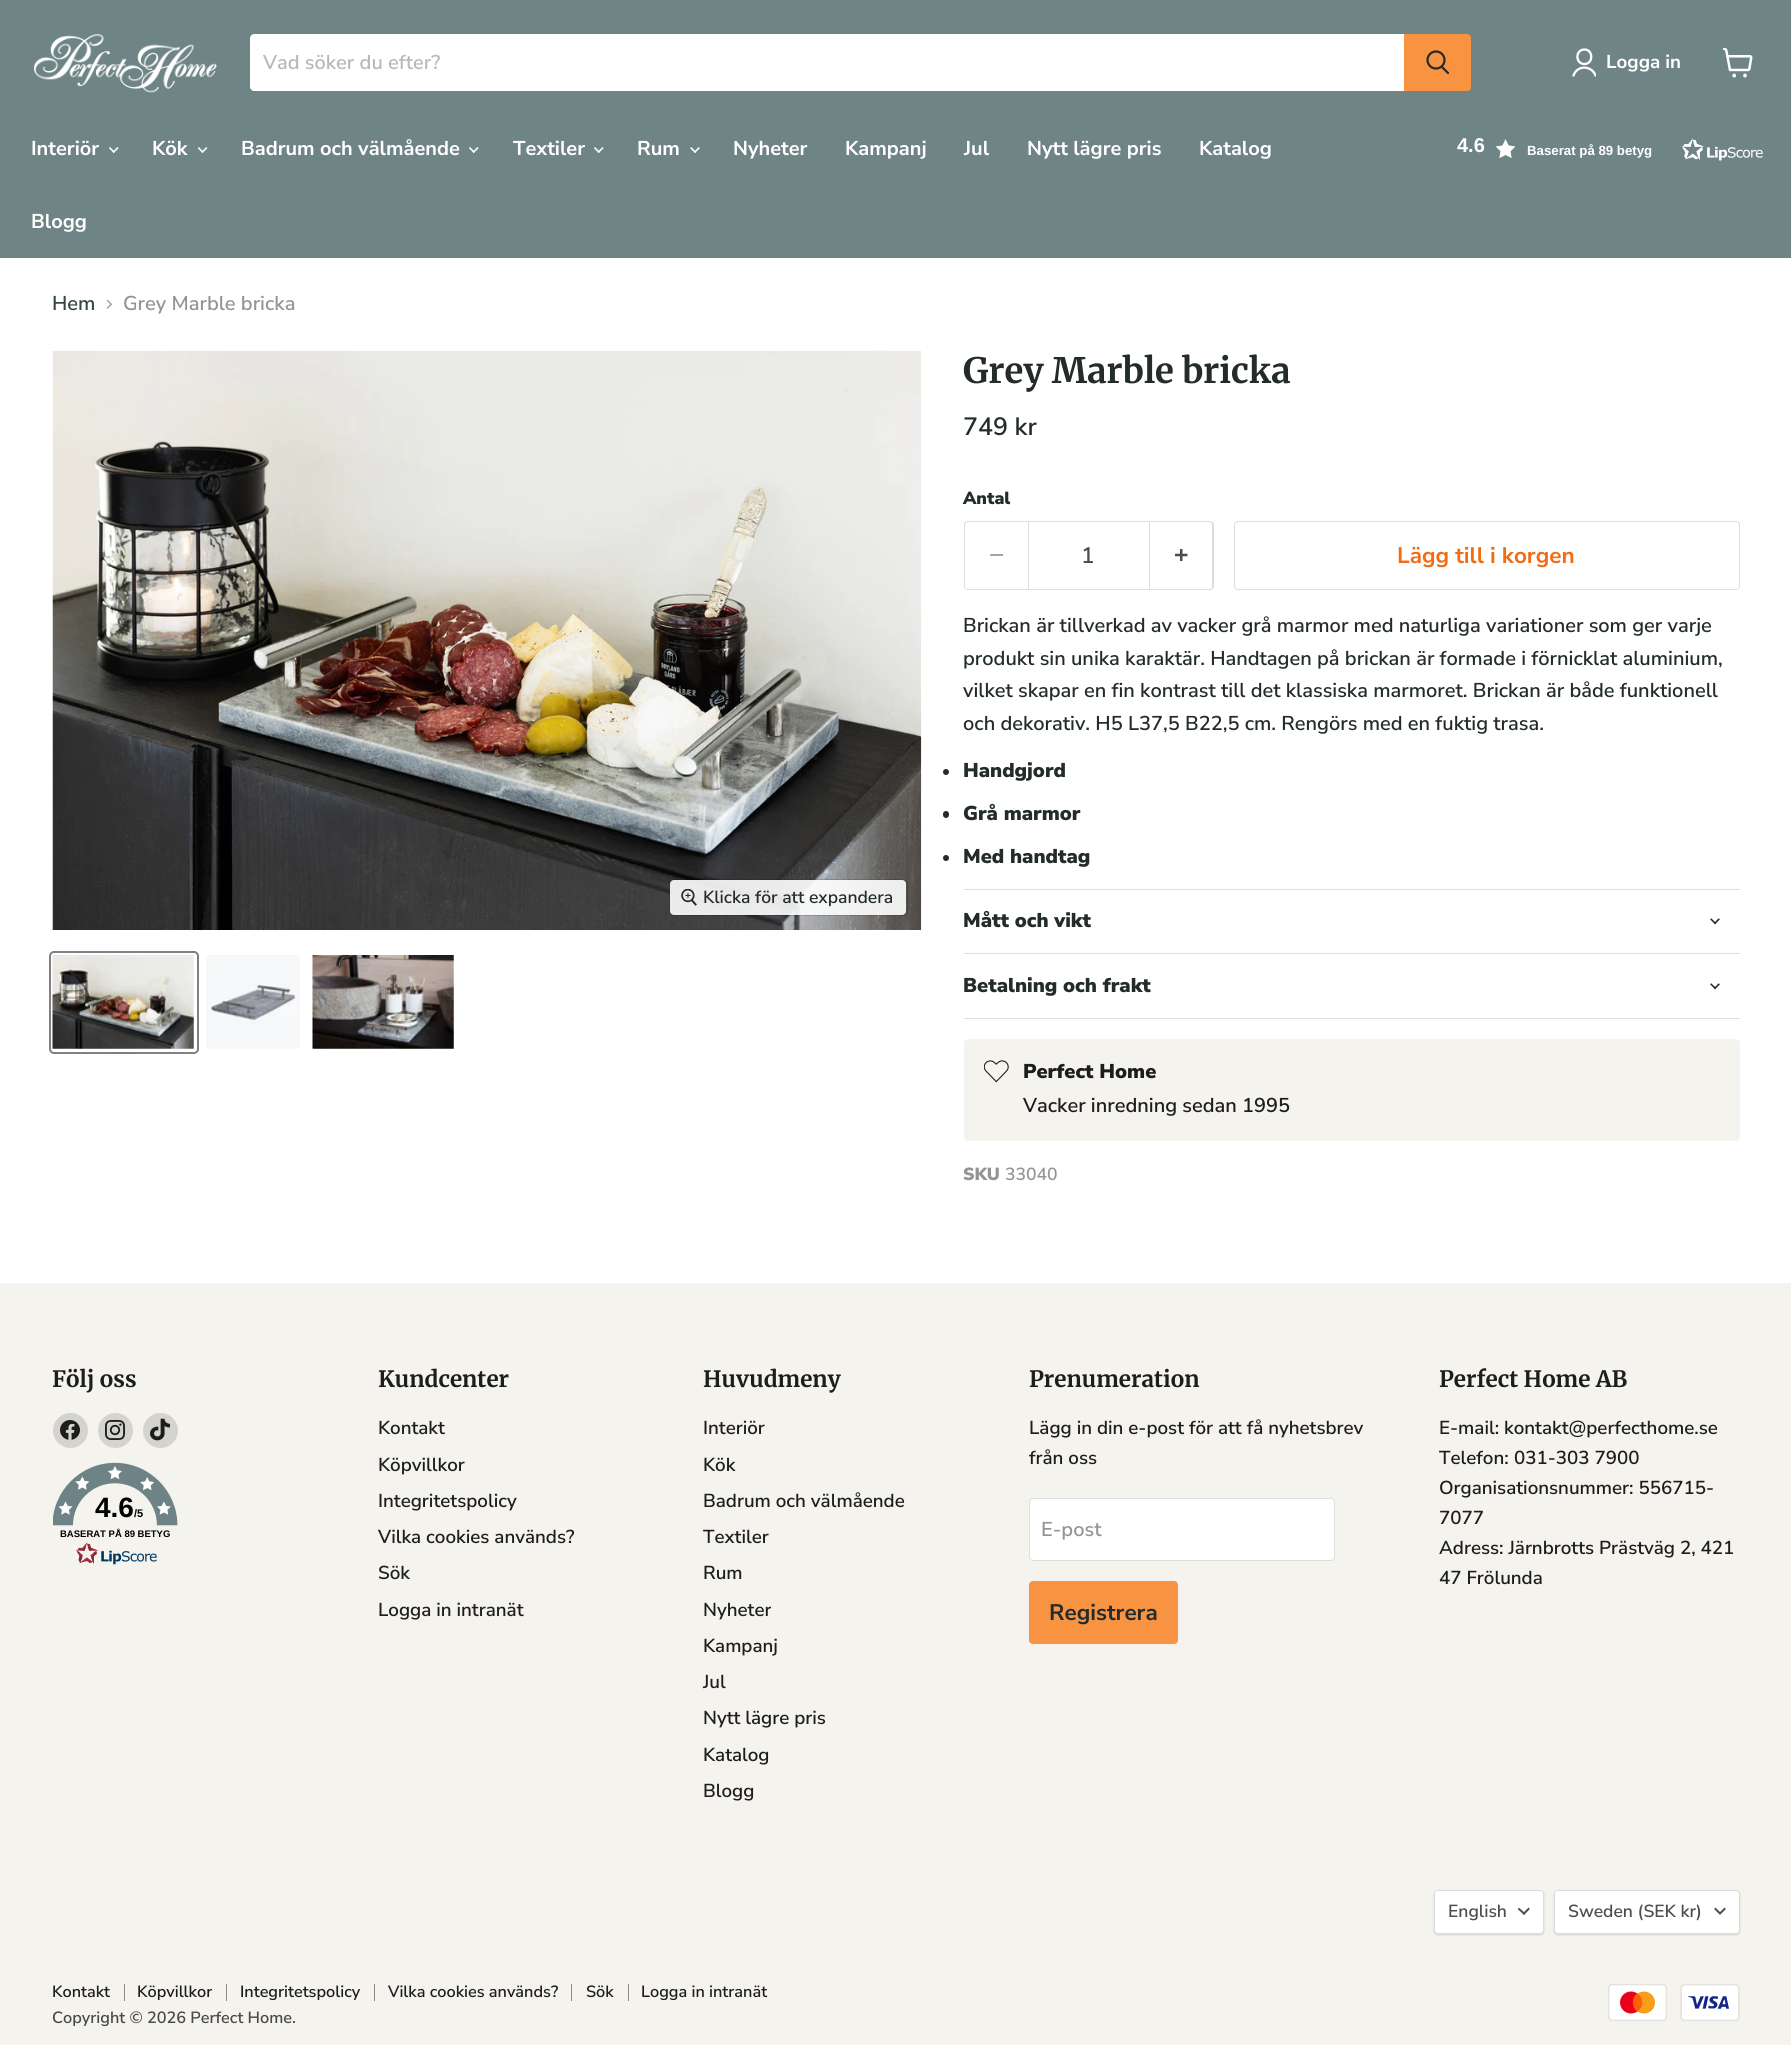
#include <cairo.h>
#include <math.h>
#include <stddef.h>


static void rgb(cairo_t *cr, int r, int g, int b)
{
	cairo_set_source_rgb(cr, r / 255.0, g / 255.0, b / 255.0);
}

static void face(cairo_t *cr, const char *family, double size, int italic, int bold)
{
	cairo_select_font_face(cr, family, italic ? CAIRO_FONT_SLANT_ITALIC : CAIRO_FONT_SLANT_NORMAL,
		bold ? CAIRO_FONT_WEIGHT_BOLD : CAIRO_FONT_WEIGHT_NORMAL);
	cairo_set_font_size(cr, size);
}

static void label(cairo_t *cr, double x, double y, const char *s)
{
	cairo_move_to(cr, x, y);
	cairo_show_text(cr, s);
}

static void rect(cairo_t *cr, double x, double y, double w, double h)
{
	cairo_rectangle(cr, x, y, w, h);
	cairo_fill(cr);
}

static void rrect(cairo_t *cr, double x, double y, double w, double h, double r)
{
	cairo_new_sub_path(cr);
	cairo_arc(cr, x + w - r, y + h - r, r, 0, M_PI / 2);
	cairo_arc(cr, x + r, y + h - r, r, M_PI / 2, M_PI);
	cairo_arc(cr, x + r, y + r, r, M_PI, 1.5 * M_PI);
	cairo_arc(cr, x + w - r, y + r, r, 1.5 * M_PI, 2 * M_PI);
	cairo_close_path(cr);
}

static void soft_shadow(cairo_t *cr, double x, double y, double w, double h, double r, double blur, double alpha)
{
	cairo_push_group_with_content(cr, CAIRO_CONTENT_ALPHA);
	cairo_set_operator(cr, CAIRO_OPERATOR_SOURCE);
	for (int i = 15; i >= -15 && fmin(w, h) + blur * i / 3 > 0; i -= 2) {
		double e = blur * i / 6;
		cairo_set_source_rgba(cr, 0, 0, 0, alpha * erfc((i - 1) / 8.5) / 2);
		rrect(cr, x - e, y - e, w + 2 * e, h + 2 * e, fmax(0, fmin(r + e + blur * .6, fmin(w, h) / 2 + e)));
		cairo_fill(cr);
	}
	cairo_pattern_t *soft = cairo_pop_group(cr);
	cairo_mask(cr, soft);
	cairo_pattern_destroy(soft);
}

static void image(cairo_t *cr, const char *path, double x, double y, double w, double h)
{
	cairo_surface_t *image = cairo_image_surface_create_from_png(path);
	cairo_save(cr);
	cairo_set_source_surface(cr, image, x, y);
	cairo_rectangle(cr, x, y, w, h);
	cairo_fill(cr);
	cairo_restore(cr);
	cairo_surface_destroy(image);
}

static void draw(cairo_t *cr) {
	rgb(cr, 255, 255, 255);
	cairo_paint(cr);
	rgb(cr, 111, 132, 133);
	rect(cr, 0, 0, 1791, 258);
	image(cr, "image0.png", 34, 34, 183, 59);
	rrect(cr, 249.5, 33.5, 1223, 59, 4.5);
	rgb(cr, 114, 131, 132);
	cairo_set_line_width(cr, 1);
	cairo_stroke(cr);
	rgb(cr, 255, 255, 255);
	cairo_new_path(cr);
	cairo_move_to(cr, 254, 34);
	cairo_line_to(cr, 1404, 34);
	cairo_line_to(cr, 1404, 91);
	cairo_line_to(cr, 254, 91);
	cairo_curve_to(cr, 252, 91, 250, 89, 250, 87);
	cairo_line_to(cr, 250, 38);
	cairo_curve_to(cr, 250, 36, 252, 34, 254, 34);
	cairo_close_path(cr);
	cairo_fill(cr);
	face(cr, "Nunito Sans SemiBold", 20, 0, 0);
	rgb(cr, 184, 184, 184);
	label(cr, 263, 69, "Vad söker du efter?");
	rgb(cr, 247, 147, 65);
	cairo_new_path(cr);
	cairo_move_to(cr, 1404.5, 34.5);
	cairo_line_to(cr, 1467, 34.5);
	cairo_curve_to(cr, 1469, 34.5, 1470.5, 36, 1470.5, 38);
	cairo_line_to(cr, 1470.5, 87);
	cairo_curve_to(cr, 1470.5, 89, 1469, 90.5, 1467, 90.5);
	cairo_line_to(cr, 1404.5, 90.5);
	cairo_close_path(cr);
	cairo_fill_preserve(cr);
	cairo_stroke(cr);
	cairo_new_path(cr);
	cairo_move_to(cr, 1448, 73);
	cairo_line_to(cr, 1442, 67);
	rgb(cr, 35, 43, 43);
	cairo_set_line_width(cr, 2.2);
	cairo_set_line_cap(cr, CAIRO_LINE_CAP_ROUND);
	cairo_stroke(cr);
	cairo_arc(cr, 1436, 60, 8.5, 0, 2 * M_PI);
	cairo_set_line_cap(cr, CAIRO_LINE_CAP_BUTT);
	cairo_stroke(cr);
	cairo_new_path(cr);
	cairo_move_to(cr, 1584.5, 64);
	cairo_curve_to(cr, 1593.5, 64, 1593.5, 49.5, 1584.5, 49.5);
	cairo_curve_to(cr, 1575, 49.5, 1575, 64, 1584.5, 64);
	cairo_close_path(cr);
	rgb(cr, 255, 255, 255);
	cairo_set_line_width(cr, 2.3);
	cairo_set_line_cap(cr, CAIRO_LINE_CAP_ROUND);
	cairo_set_line_join(cr, CAIRO_LINE_JOIN_ROUND);
	cairo_stroke(cr);
	cairo_save(cr);
	cairo_rectangle(cr, 1571, 48, 25, 30);
	cairo_clip(cr);
	cairo_new_path(cr);
	cairo_move_to(cr, 1595.5, 75.5);
	cairo_curve_to(cr, 1591.5, 65, 1577, 65, 1573.5, 75.5);
	cairo_stroke(cr);
	cairo_restore(cr);
	face(cr, "Nunito Sans", 18.75, 0, 1);
	label(cr, 1606, 68, "Logga in");
	image(cr, "image1.png", 1723, 48, 30, 30);
	face(cr, "Nunito Sans", 20, 0, 1);
	label(cr, 31, 155, "Interiör");
	image(cr, "image2.png", 109, 147, 10, 6);
	label(cr, 152, 155, "Kök");
	image(cr, "image3.png", 198, 147, 10, 6);
	label(cr, 241, 155, "Badrum och välmående");
	image(cr, "image2.png", 469, 147, 10, 6);
	label(cr, 513, 155, "Textiler");
	image(cr, "image2.png", 594, 147, 10, 6);
	label(cr, 637, 155, "Rum");
	image(cr, "image4.png", 690, 147, 10, 6);
	label(cr, 733, 155, "Nyheter");
	label(cr, 845, 155, "Kampanj");
	label(cr, 964, 155, "Jul");
	label(cr, 1027, 155, "Nytt lägre pris");
	label(cr, 1199, 155, "Katalog");
	label(cr, 31, 228, "Blogg");
	face(cr, "Liberation Sans", 20, 0, 1);
	label(cr, 1457, 152, "4.6");
	image(cr, "image5.png", 1496, 138, 267, 23);
	face(cr, "Liberation Sans", 13.25, 0, 1);
	label(cr, 1527, 155, "Baserat på 89 betyg");
	face(cr, "Nunito Sans SemiBold", 20, 0, 0);
	rgb(cr, 56, 69, 69);
	label(cr, 52, 310, "Hem");
	image(cr, "image6.png", 106, 299, 6, 10);
	rgb(cr, 148, 148, 148);
	label(cr, 123, 310, "Grey Marble bricka");
	image(cr, "image7.png", 52, 350, 870, 580);
	rrect(cr, 669.5, 879.5, 238, 36, 4.5);
	cairo_set_source_rgba(cr, 0, 0, 0, 0.15);
	cairo_set_line_width(cr, 1);
	cairo_set_line_cap(cr, CAIRO_LINE_CAP_BUTT);
	cairo_set_line_join(cr, CAIRO_LINE_JOIN_MITER);
	cairo_stroke(cr);
	cairo_set_source_rgba(cr, 1, 1, 1, 0.9);
	rrect(cr, 670, 880, 236, 35, 4);
	cairo_fill(cr);
	image(cr, "image8.png", 681, 889, 16, 17);
	face(cr, "Nunito Sans SemiBold", 17.5, 0, 0);
	rgb(cr, 35, 43, 43);
	label(cr, 703, 903, "Klicka för att expandera");
	rrect(cr, 50, 952, 148, 101, 4);
	rgb(cr, 129, 129, 129);
	cairo_set_line_width(cr, 2);
	cairo_stroke(cr);
	image(cr, "image9.png", 52, 955, 142, 94);
	image(cr, "image10.png", 206, 955, 94, 94);
	image(cr, "image11.png", 312, 955, 142, 94);
	face(cr, "Merriweather", 35, 0, 1);
	rgb(cr, 35, 43, 43);
	label(cr, 963, 383, "Grey Marble bricka");
	face(cr, "Nunito Sans SemiBold", 25, 0, 0);
	label(cr, 963, 435, "749 kr");
	face(cr, "Nunito Sans Black", 17.5, 0, 0);
	label(cr, 963, 504, "Antal");
	rgb(cr, 221, 221, 221);
	cairo_set_fill_rule(cr, CAIRO_FILL_RULE_EVEN_ODD);
	cairo_new_path(cr);
	cairo_move_to(cr, 968, 521);
	cairo_line_to(cr, 1028, 521);
	cairo_line_to(cr, 1028, 590);
	cairo_line_to(cr, 968, 590);
	cairo_curve_to(cr, 965, 590, 964, 588, 964, 586);
	cairo_line_to(cr, 964, 525);
	cairo_curve_to(cr, 964, 523, 965, 521, 968, 521);
	cairo_close_path(cr);
	cairo_move_to(cr, 968, 522);
	cairo_line_to(cr, 1028, 522);
	cairo_line_to(cr, 1028, 589);
	cairo_line_to(cr, 968, 589);
	cairo_curve_to(cr, 966, 589, 965, 588, 965, 586);
	cairo_line_to(cr, 965, 525);
	cairo_curve_to(cr, 965, 524, 966, 522, 968, 522);
	cairo_close_path(cr);
	cairo_fill(cr);
	rgb(cr, 166, 166, 166);
	rect(cr, 990, 554, 13, 2);
	cairo_rectangle(cr, 1028.5, 521.5, 121, 68);
	rgb(cr, 221, 221, 221);
	cairo_set_line_width(cr, 1);
	cairo_stroke(cr);
	face(cr, "Nunito Sans SemiBold", 22.5, 0, 0);
	rgb(cr, 77, 77, 77);
	label(cr, 1081, 563, "1");
	rgb(cr, 221, 221, 221);
	cairo_new_path(cr);
	cairo_move_to(cr, 1150, 521);
	cairo_line_to(cr, 1210, 521);
	cairo_curve_to(cr, 1212, 521, 1214, 523, 1214, 525);
	cairo_line_to(cr, 1214, 586);
	cairo_curve_to(cr, 1214, 588, 1212, 590, 1210, 590);
	cairo_line_to(cr, 1150, 590);
	cairo_close_path(cr);
	cairo_move_to(cr, 1150, 522);
	cairo_line_to(cr, 1210, 522);
	cairo_curve_to(cr, 1211, 522, 1212, 524, 1212, 525);
	cairo_line_to(cr, 1212, 586);
	cairo_curve_to(cr, 1212, 588, 1211, 589, 1210, 589);
	cairo_line_to(cr, 1150, 589);
	cairo_close_path(cr);
	cairo_fill(cr);
	image(cr, "image12.png", 1175, 549, 13, 12);
	rrect(cr, 1234.5, 521.5, 505, 68, 3.5);
	cairo_stroke(cr);
	face(cr, "Nunito Sans", 22.5, 0, 1);
	rgb(cr, 243, 108, 20);
	label(cr, 1397, 563, "Lägg till i korgen");
	face(cr, "Nunito Sans SemiBold", 20, 0, 0);
	rgb(cr, 35, 43, 43);
	label(cr, 963, 632, "Brickan är tillverkad av vacker grå marmor med naturliga variationer som ger varje");
	label(cr, 963, 665, "produkt sin unika karaktär. Handtagen på brickan är formade i förnicklat aluminium,");
	label(cr, 963, 697, "vilket skapar en fin kontrast till det klassiska marmoret. Brickan är både funktionell");
	label(cr, 963, 730, "och dekorativ. H5 L37,5 B22,5 cm. Rengörs med en fuktig trasa.");
	cairo_new_path(cr);
	cairo_arc(cr, 946, 772, 3, 0, 2 * M_PI);
	cairo_fill(cr);
	face(cr, "Nunito Sans Black", 20, 0, 0);
	label(cr, 963, 777, "Handgjord");
	rrect(cr, 943, 811, 6, 7, 3);
	cairo_fill(cr);
	label(cr, 963, 820, "Grå marmor");
	cairo_new_path(cr);
	cairo_arc(cr, 946, 858, 3, 0, 2 * M_PI);
	cairo_fill(cr);
	label(cr, 963, 863, "Med handtag");
	rgb(cr, 221, 221, 221);
	rect(cr, 964, 889, 776, 1);
	rect(cr, 964, 953, 776, 1);
	rgb(cr, 35, 43, 43);
	label(cr, 963, 927, "Mått och vikt");
	image(cr, "image13.png", 1710, 918, 10, 7);
	rgb(cr, 221, 221, 221);
	rect(cr, 964, 1018, 776, 1);
	rgb(cr, 35, 43, 43);
	label(cr, 963, 992, "Betalning och frakt");
	image(cr, "image13.png", 1710, 983, 10, 7);
	rgb(cr, 245, 243, 237);
	rrect(cr, 964, 1039, 776, 102, 4);
	cairo_fill(cr);
	image(cr, "image14.png", 984, 1060, 25, 23);
	rgb(cr, 29, 29, 29);
	label(cr, 1023, 1078, "Perfect Home");
	face(cr, "Nunito Sans SemiBold", 20, 0, 0);
	label(cr, 1023, 1112, "Vacker inredning sedan 1995");
	face(cr, "Nunito Sans Black", 17.5, 0, 0);
	rgb(cr, 148, 148, 148);
	label(cr, 963, 1180, "SKU");
	face(cr, "Nunito Sans SemiBold", 17.5, 0, 0);
	label(cr, 1005, 1180, "33040");
	rgb(cr, 245, 243, 237);
	rect(cr, 0, 1283, 1791, 762);
	face(cr, "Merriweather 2", 22.5, 0, 1);
	rgb(cr, 29, 29, 29);
	label(cr, 52, 1387, "Följ oss");
	rgb(cr, 213, 211, 206);
	cairo_new_path(cr);
	cairo_arc(cr, 70.5, 1430.5, 17.5, 0, 2 * M_PI);
	cairo_fill(cr);
	image(cr, "image15.png", 60, 1420, 20, 20);
	cairo_arc(cr, 115.5, 1430.5, 17.5, 0, 2 * M_PI);
	cairo_fill(cr);
	image(cr, "image16.png", 105, 1420, 20, 20);
	cairo_arc(cr, 160.5, 1430.5, 17.5, 0, 2 * M_PI);
	cairo_fill(cr);
	image(cr, "image17.png", 150, 1418, 20, 23);
	image(cr, "image18.png", 53, 1462, 125, 103);
	face(cr, "Liberation Sans", 28, 0, 1);
	rgb(cr, 0, 0, 0);
	label(cr, 95, 1517, "4.6");
	face(cr, "Liberation Sans", 11, 0, 1);
	label(cr, 134, 1517, "/5");
	face(cr, "Liberation Sans", 9.5, 0, 1);
	label(cr, 60, 1537, "BASERAT PÅ 89 BETYG");
	face(cr, "Merriweather 2", 22.5, 0, 1);
	rgb(cr, 29, 29, 29);
	label(cr, 378, 1387, "Kundcenter");
	face(cr, "Nunito Sans SemiBold", 18.75, 0, 0);
	label(cr, 378, 1434, "Kontakt");
	label(cr, 378, 1471, "Köpvillkor");
	label(cr, 378, 1507, "Integritetspolicy");
	label(cr, 378, 1543, "Vilka cookies används?");
	label(cr, 378, 1579, "Sök");
	label(cr, 378, 1616, "Logga in intranät");
	face(cr, "Merriweather 2", 22.5, 0, 1);
	label(cr, 703, 1387, "Huvudmeny");
	face(cr, "Nunito Sans SemiBold", 18.75, 0, 0);
	label(cr, 703, 1434, "Interiör");
	label(cr, 703, 1471, "Kök");
	label(cr, 703, 1507, "Badrum och välmående");
	label(cr, 703, 1543, "Textiler");
	label(cr, 703, 1579, "Rum");
	label(cr, 703, 1616, "Nyheter");
	label(cr, 703, 1652, "Kampanj");
	label(cr, 703, 1688, "Jul");
	label(cr, 703, 1724, "Nytt lägre pris");
	label(cr, 703, 1761, "Katalog");
	label(cr, 703, 1797, "Blogg");
	face(cr, "Merriweather 2", 22.5, 0, 1);
	label(cr, 1029, 1387, "Prenumeration");
	face(cr, "Nunito Sans SemiBold", 18.75, 0, 0);
	label(cr, 1029, 1434, "Lägg in din e-post för att få nyhetsbrev");
	label(cr, 1029, 1464, "från oss");
	rgb(cr, 255, 255, 255);
	rrect(cr, 1029.5, 1498.5, 305, 62, 3.5);
	cairo_fill_preserve(cr);
	rgb(cr, 221, 221, 221);
	cairo_stroke(cr);
	face(cr, "Nunito Sans SemiBold", 20, 0, 0);
	rgb(cr, 148, 148, 148);
	label(cr, 1041, 1536, "E-post");
	rgb(cr, 247, 147, 65);
	rrect(cr, 1029.5, 1581.5, 148, 62, 3.5);
	cairo_fill_preserve(cr);
	cairo_stroke(cr);
	face(cr, "Nunito Sans", 22.5, 0, 1);
	rgb(cr, 35, 43, 43);
	label(cr, 1049, 1620, "Registrera");
	face(cr, "Merriweather 2", 22.5, 0, 1);
	rgb(cr, 29, 29, 29);
	label(cr, 1439, 1387, "Perfect Home AB");
	face(cr, "Nunito Sans SemiBold", 18.75, 0, 0);
	label(cr, 1439, 1434, "E-mail:");
	label(cr, 1504, 1434, "kontakt@perfecthome.se");
	label(cr, 1439, 1464, "Telefon:");
	label(cr, 1514, 1464, "031-303 7900");
	label(cr, 1439, 1494, "Organisationsnummer: 556715-");
	label(cr, 1439, 1524, "7077");
	label(cr, 1439, 1554, "Adress: Järnbrotts Prästväg 2, 421");
	label(cr, 1439, 1584, "47 Frölunda");
	rgb(cr, 0, 0, 0);
	soft_shadow(cr, 1434, 1891, 110, 44, 4, 1, 0.15);
	rgb(cr, 255, 255, 255);
	rrect(cr, 1434.5, 1890.5, 109, 43, 3.5);
	cairo_fill_preserve(cr);
	rgb(cr, 221, 221, 221);
	cairo_stroke(cr);
	face(cr, "Nunito Sans SemiBold", 17.5, 0, 0);
	rgb(cr, 77, 77, 77);
	label(cr, 1448, 1917, "English");
	cairo_new_path(cr);
	cairo_move_to(cr, 1524, 1913.5);
	cairo_line_to(cr, 1528.5, 1909);
	cairo_set_line_width(cr, 2);
	cairo_set_line_cap(cr, CAIRO_LINE_CAP_SQUARE);
	cairo_stroke(cr);
	cairo_save(cr);
	cairo_set_fill_rule(cr, CAIRO_FILL_RULE_WINDING);
	cairo_rectangle(cr, 1518, 1908, 12, 8);
	cairo_clip(cr);
	cairo_new_path(cr);
	cairo_move_to(cr, 1524, 1913.5);
	cairo_line_to(cr, 1519, 1909);
	cairo_stroke(cr);
	cairo_restore(cr);
	rgb(cr, 0, 0, 0);
	soft_shadow(cr, 1554, 1891, 186, 44, 4, 1, 0.15);
	rgb(cr, 255, 255, 255);
	rrect(cr, 1554.5, 1890.5, 185, 43, 3.5);
	cairo_fill_preserve(cr);
	rgb(cr, 221, 221, 221);
	cairo_set_line_width(cr, 1);
	cairo_set_line_cap(cr, CAIRO_LINE_CAP_BUTT);
	cairo_stroke(cr);
	rgb(cr, 77, 77, 77);
	label(cr, 1568, 1917, "Sweden (SEK kr)");
	cairo_new_path(cr);
	cairo_move_to(cr, 1720, 1913.5);
	cairo_line_to(cr, 1724.5, 1909);
	cairo_move_to(cr, 1720, 1913.5);
	cairo_line_to(cr, 1715.5, 1909);
	cairo_set_line_width(cr, 2);
	cairo_set_line_cap(cr, CAIRO_LINE_CAP_SQUARE);
	cairo_stroke(cr);
	rgb(cr, 137, 136, 133);
	rect(cr, 124, 1984, 1, 17);
	face(cr, "Nunito Sans SemiBold", 16.25, 0, 0);
	rgb(cr, 29, 29, 29);
	label(cr, 52, 1997, "Kontakt");
	rgb(cr, 137, 136, 133);
	rect(cr, 226, 1984, 1, 17);
	rgb(cr, 29, 29, 29);
	label(cr, 137, 1997, "Köpvillkor");
	rgb(cr, 137, 136, 133);
	rect(cr, 374, 1984, 1, 17);
	rgb(cr, 29, 29, 29);
	label(cr, 240, 1997, "Integritetspolicy");
	rgb(cr, 137, 136, 133);
	rect(cr, 571, 1984, 1, 17);
	rgb(cr, 29, 29, 29);
	label(cr, 388, 1997, "Vilka cookies används?");
	rgb(cr, 137, 136, 133);
	rect(cr, 628, 1984, 1, 17);
	rgb(cr, 29, 29, 29);
	label(cr, 586, 1997, "Sök");
	label(cr, 641, 1997, "Logga in intranät");
	rgb(cr, 72, 72, 71);
	label(cr, 52, 2023, "Copyright © 2026 Perfect Home.");
	image(cr, "image19.png", 1608, 1984, 59, 37);
	image(cr, "image20.png", 1680, 1984, 60, 37);
}

int main(void) {
	cairo_surface_t *surface = cairo_image_surface_create(CAIRO_FORMAT_RGB24, 1791, 2045);
	cairo_t *cr = cairo_create(surface);
	cairo_font_options_t *options = cairo_font_options_create();
	cairo_font_options_set_hint_metrics(options, CAIRO_HINT_METRICS_OFF);
	cairo_font_options_set_hint_style(options, CAIRO_HINT_STYLE_NONE);
	cairo_set_font_options(cr, options);
	cairo_set_miter_limit(cr, 4);
	draw(cr);
	cairo_surface_write_to_png(surface, "render.png");
	cairo_font_options_destroy(options);
	cairo_destroy(cr);
	cairo_surface_destroy(surface);
	return 0;
}
